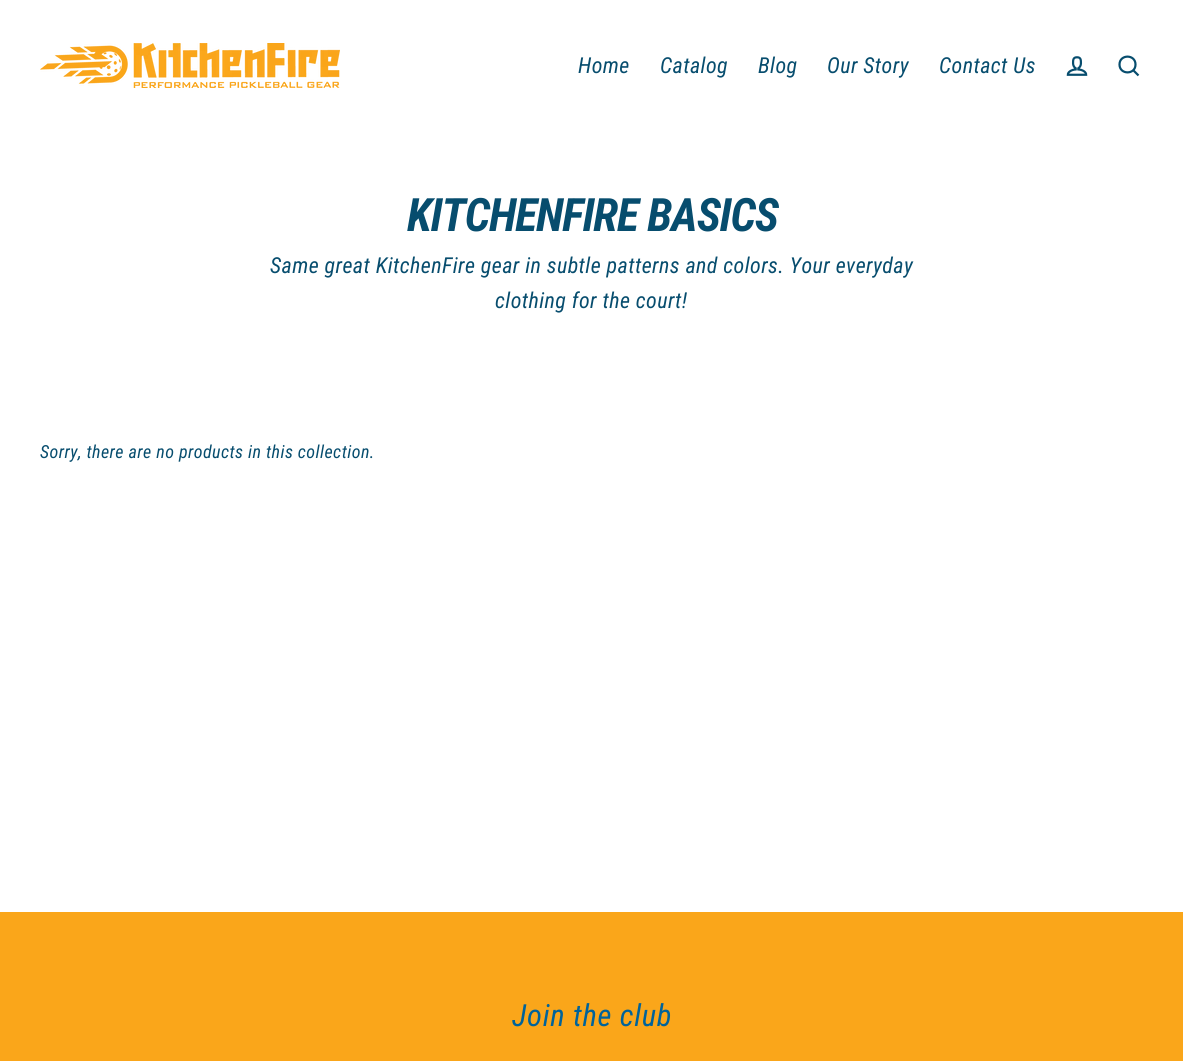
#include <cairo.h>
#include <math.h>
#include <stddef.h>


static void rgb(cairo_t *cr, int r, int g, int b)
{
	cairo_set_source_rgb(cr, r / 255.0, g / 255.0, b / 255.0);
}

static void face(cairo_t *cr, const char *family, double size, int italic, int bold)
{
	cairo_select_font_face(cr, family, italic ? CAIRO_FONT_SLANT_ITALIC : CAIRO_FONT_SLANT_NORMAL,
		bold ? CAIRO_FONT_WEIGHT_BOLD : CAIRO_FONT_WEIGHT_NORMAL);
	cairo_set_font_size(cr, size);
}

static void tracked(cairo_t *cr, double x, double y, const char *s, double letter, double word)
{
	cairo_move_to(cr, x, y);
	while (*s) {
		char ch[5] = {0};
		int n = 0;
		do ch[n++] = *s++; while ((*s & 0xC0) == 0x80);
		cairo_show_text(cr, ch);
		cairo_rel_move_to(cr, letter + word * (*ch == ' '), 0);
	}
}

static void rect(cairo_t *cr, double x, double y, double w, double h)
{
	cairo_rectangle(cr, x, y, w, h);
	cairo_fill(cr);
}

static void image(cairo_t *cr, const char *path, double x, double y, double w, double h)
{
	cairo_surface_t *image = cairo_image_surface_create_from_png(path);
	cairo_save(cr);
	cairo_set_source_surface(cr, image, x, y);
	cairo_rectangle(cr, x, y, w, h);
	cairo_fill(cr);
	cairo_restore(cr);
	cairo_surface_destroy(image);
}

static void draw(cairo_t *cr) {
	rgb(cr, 255, 255, 255);
	cairo_paint(cr);
	image(cr, "image0.png", 40, 43, 300, 45);
	face(cr, "Roboto Condensed", 21.95, 1, 0);
	rgb(cr, 7, 77, 110);
	tracked(cr, 578, 73, "Home", 0.45, 0);
	tracked(cr, 660, 73, "Catalog", 0.45, 0);
	tracked(cr, 758, 73, "Blog", 0.45, 0);
	tracked(cr, 827, 73, "Our Story", 0.45, 0);
	tracked(cr, 939, 73, "Contact Us", 0.45, 0);
	image(cr, "image1.png", 1066, 56, 22, 20);
	cairo_new_path(cr);
	cairo_move_to(cr, 1135.5, 64.5);
	cairo_curve_to(cr, 1135.5, 75, 1119.5, 75, 1119.5, 64.5);
	cairo_curve_to(cr, 1119.5, 54, 1135.5, 54, 1135.5, 64.5);
	cairo_close_path(cr);
	cairo_move_to(cr, 1138.5, 75.5);
	cairo_line_to(cr, 1133.5, 70.5);
	cairo_set_line_width(cr, 2.2);
	cairo_stroke(cr);
	face(cr, "Roboto Condensed", 46, 1, 1);
	tracked(cr, 407, 231, "KITCHENFIRE BASICS", -1.1, 0);
	face(cr, "Roboto Condensed", 21.95, 1, 0);
	tracked(cr, 270, 273, "Same great KitchenFire gear in subtle patterns and colors. Your everyday", 0.45, 0);
	tracked(cr, 495, 308, "clothing for the court!", 0.45, 0);
	face(cr, "Roboto Condensed", 18, 1, 0);
	tracked(cr, 40, 458, "Sorry, there are no products in this collection.", 0.45, 0);
	rgb(cr, 250, 166, 26);
	rect(cr, 0, 912, 1183, 149);
	face(cr, "Roboto Condensed", 30.5, 1, 0);
	rgb(cr, 0, 99, 154);
	tracked(cr, 512, 1026, "Join the club", 0.75, 0);
}

int main(void) {
	cairo_surface_t *surface = cairo_image_surface_create(CAIRO_FORMAT_RGB24, 1183, 1061);
	cairo_t *cr = cairo_create(surface);
	cairo_font_options_t *options = cairo_font_options_create();
	cairo_font_options_set_hint_metrics(options, CAIRO_HINT_METRICS_OFF);
	cairo_font_options_set_hint_style(options, CAIRO_HINT_STYLE_NONE);
	cairo_set_font_options(cr, options);
	cairo_set_miter_limit(cr, 4);
	draw(cr);
	cairo_surface_write_to_png(surface, "render.png");
	cairo_font_options_destroy(options);
	cairo_destroy(cr);
	cairo_surface_destroy(surface);
	return 0;
}
